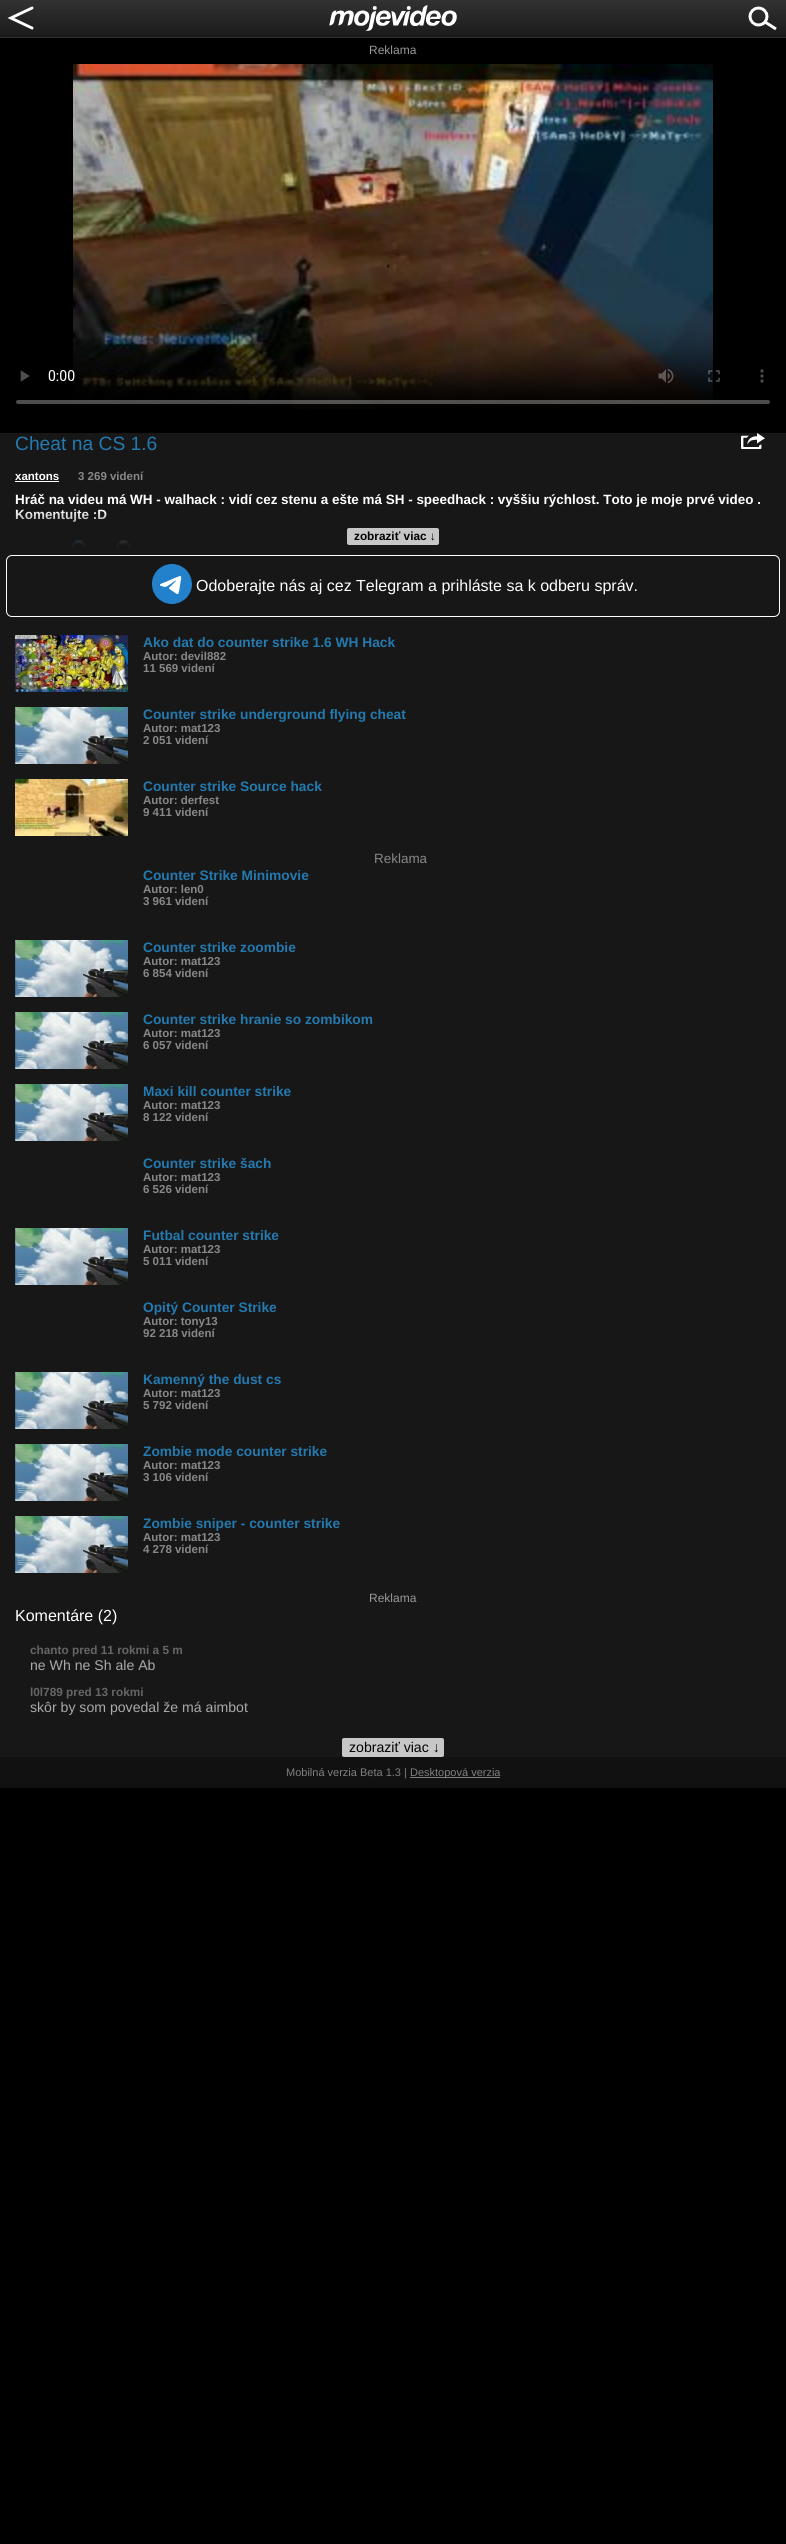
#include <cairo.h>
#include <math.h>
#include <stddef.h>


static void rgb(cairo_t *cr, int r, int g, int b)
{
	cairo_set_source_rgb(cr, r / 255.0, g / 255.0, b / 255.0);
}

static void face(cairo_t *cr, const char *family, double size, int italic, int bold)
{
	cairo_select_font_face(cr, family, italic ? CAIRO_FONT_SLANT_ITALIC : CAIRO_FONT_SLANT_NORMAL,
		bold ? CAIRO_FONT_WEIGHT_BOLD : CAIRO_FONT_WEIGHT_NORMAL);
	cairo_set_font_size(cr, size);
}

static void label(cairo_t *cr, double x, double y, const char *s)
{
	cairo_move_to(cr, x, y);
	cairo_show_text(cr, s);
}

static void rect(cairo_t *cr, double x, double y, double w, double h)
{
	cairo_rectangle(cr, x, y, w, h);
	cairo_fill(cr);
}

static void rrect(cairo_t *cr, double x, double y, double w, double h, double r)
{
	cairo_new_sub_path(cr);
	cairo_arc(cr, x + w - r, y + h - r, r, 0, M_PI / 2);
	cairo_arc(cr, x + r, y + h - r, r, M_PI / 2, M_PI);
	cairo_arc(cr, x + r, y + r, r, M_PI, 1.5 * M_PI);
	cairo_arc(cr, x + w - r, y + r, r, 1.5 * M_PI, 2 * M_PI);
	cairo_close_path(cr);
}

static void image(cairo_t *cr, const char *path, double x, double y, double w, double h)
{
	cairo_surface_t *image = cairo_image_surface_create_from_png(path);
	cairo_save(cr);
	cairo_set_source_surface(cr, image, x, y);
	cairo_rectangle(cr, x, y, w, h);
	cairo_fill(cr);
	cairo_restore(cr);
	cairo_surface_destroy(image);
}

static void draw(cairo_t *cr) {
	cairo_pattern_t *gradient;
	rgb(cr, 0, 0, 0);
	cairo_paint(cr);
	image(cr, "image0.png", 0, 0, 786, 38);
	image(cr, "image1.png", 7, 6, 27, 24);
	image(cr, "image2.png", 329, 5, 128, 26);
	image(cr, "image3.png", 748, 6, 29, 25);
	face(cr, "Liberation Sans", 12, 0, 0);
	rgb(cr, 153, 153, 153);
	label(cr, 369, 54, "Reklama");
	image(cr, "image4.png", 16, 64, 754, 345);
	rgb(cr, 23, 23, 23);
	rect(cr, 0, 433, 786, 1324);
	face(cr, "Liberation Sans", 19.25, 0, 0);
	rgb(cr, 36, 121, 174);
	label(cr, 15, 450, "Cheat na CS 1.6");
	image(cr, "image5.png", 741, 433, 24, 16);
	face(cr, "Liberation Sans", 11.5, 0, 1);
	rgb(cr, 255, 255, 255);
	label(cr, 15, 480, "xantons");
	rect(cr, 15, 481, 44, 1);
	rgb(cr, 136, 136, 136);
	label(cr, 78, 480, "3 269 videní");
	face(cr, "Liberation Sans", 13.45, 0, 1);
	rgb(cr, 255, 255, 255);
	label(cr, 15, 504, "Hráč na videu má WH - walhack : vidí cez stenu a ešte má SH - speedhack : vyššiu rýchlost. Toto je moje prvé video .");
	label(cr, 15, 519, "Komentujte :D");
	cairo_new_path(cr);
	cairo_move_to(cr, 78.5, 540);
	cairo_curve_to(cr, 82, 540, 85, 543, 85, 546.5);
	cairo_line_to(cr, 85, 545);
	cairo_line_to(cr, 72, 545);
	cairo_line_to(cr, 72, 546.5);
	cairo_curve_to(cr, 72, 543, 75, 540, 78.5, 540);
	cairo_close_path(cr);
	cairo_fill(cr);
	cairo_save(cr);
	cairo_rectangle(cr, 0, 455, 786, 90);
	cairo_clip(cr);
	cairo_arc(cr, 78.5, 546.5, 6, 0, 2 * M_PI);
	rgb(cr, 0, 117, 255);
	cairo_set_line_width(cr, 1);
	cairo_stroke(cr);
	cairo_arc(cr, 78.5, 546.5, 4, 0, 2 * M_PI);
	cairo_fill(cr);
	cairo_restore(cr);
	cairo_new_path(cr);
	cairo_move_to(cr, 123.5, 540);
	cairo_curve_to(cr, 127, 540, 130, 543, 130, 546.5);
	cairo_line_to(cr, 130, 545);
	cairo_line_to(cr, 117, 545);
	cairo_line_to(cr, 117, 546.5);
	cairo_curve_to(cr, 117, 543, 120, 540, 123.5, 540);
	cairo_close_path(cr);
	cairo_fill(cr);
	cairo_save(cr);
	cairo_rectangle(cr, 0, 455, 786, 90);
	cairo_clip(cr);
	cairo_arc(cr, 123.5, 546.5, 6, 0, 2 * M_PI);
	rgb(cr, 118, 118, 118);
	cairo_set_line_width(cr, 1);
	cairo_stroke(cr);
	cairo_restore(cr);
	gradient = cairo_pattern_create_linear(393, 510, 393, 545);
	cairo_pattern_add_color_stop_rgba(gradient, 0, 0.09, 0.09, 0.09, 0);
	cairo_pattern_add_color_stop_rgba(gradient, 1, 0.09, 0.09, 0.09, 1);
	cairo_set_source(cr, gradient);
	cairo_pattern_destroy(gradient);
	rect(cr, 15, 511, 115, 34);
	rgb(cr, 199, 199, 199);
	rrect(cr, 347, 528, 92, 17, 2);
	cairo_fill(cr);
	face(cr, "Liberation Sans", 11.8, 0, 1);
	rgb(cr, 0, 0, 0);
	label(cr, 354, 540, "zobraziť viac ↓");
	rrect(cr, 6.5, 555.5, 773, 61, 5.5);
	rgb(cr, 255, 255, 255);
	cairo_set_line_width(cr, 1);
	cairo_stroke(cr);
	image(cr, "image6.png", 152, 564, 40, 40);
	face(cr, "Liberation Sans", 16, 0, 0);
	label(cr, 196, 591, "Odoberajte nás aj cez Telegram a prihláste sa k odberu správ.");
	image(cr, "image7.png", 15, 635, 113, 57);
	face(cr, "Liberation Sans", 13.75, 0, 1);
	rgb(cr, 36, 121, 174);
	label(cr, 143, 647, "Ako dat do counter strike 1.6 WH Hack");
	face(cr, "Liberation Sans", 11.5, 0, 1);
	rgb(cr, 136, 136, 136);
	label(cr, 143, 660, "Autor: devil882");
	label(cr, 143, 672, "11 569 videní");
	image(cr, "image8.png", 15, 707, 113, 57);
	face(cr, "Liberation Sans", 13.75, 0, 1);
	rgb(cr, 36, 121, 174);
	label(cr, 143, 719, "Counter strike underground flying cheat");
	face(cr, "Liberation Sans", 11.5, 0, 1);
	rgb(cr, 136, 136, 136);
	label(cr, 143, 732, "Autor: mat123");
	label(cr, 143, 744, "2 051 videní");
	image(cr, "image9.png", 15, 779, 113, 57);
	face(cr, "Liberation Sans", 13.75, 0, 1);
	rgb(cr, 36, 121, 174);
	label(cr, 143, 791, "Counter strike Source hack");
	face(cr, "Liberation Sans", 11.5, 0, 1);
	rgb(cr, 136, 136, 136);
	label(cr, 143, 804, "Autor: derfest");
	label(cr, 143, 816, "9 411 videní");
	face(cr, "Liberation Sans", 13.45, 0, 0);
	label(cr, 374, 863, "Reklama");
	face(cr, "Liberation Sans", 13.75, 0, 1);
	rgb(cr, 36, 121, 174);
	label(cr, 143, 880, "Counter Strike Minimovie");
	face(cr, "Liberation Sans", 11.5, 0, 1);
	rgb(cr, 136, 136, 136);
	label(cr, 143, 893, "Autor: len0");
	label(cr, 143, 905, "3 961 videní");
	image(cr, "image8.png", 15, 940, 113, 57);
	face(cr, "Liberation Sans", 13.75, 0, 1);
	rgb(cr, 36, 121, 174);
	label(cr, 143, 952, "Counter strike zoombie");
	face(cr, "Liberation Sans", 11.5, 0, 1);
	rgb(cr, 136, 136, 136);
	label(cr, 143, 965, "Autor: mat123");
	label(cr, 143, 977, "6 854 videní");
	image(cr, "image10.png", 15, 1012, 113, 57);
	face(cr, "Liberation Sans", 13.75, 0, 1);
	rgb(cr, 36, 121, 174);
	label(cr, 143, 1024, "Counter strike hranie so zombikom");
	face(cr, "Liberation Sans", 11.5, 0, 1);
	rgb(cr, 136, 136, 136);
	label(cr, 143, 1037, "Autor: mat123");
	label(cr, 143, 1049, "6 057 videní");
	image(cr, "image8.png", 15, 1084, 113, 57);
	face(cr, "Liberation Sans", 13.75, 0, 1);
	rgb(cr, 36, 121, 174);
	label(cr, 143, 1096, "Maxi kill counter strike");
	face(cr, "Liberation Sans", 11.5, 0, 1);
	rgb(cr, 136, 136, 136);
	label(cr, 143, 1109, "Autor: mat123");
	label(cr, 143, 1121, "8 122 videní");
	face(cr, "Liberation Sans", 13.75, 0, 1);
	rgb(cr, 36, 121, 174);
	label(cr, 143, 1168, "Counter strike šach");
	face(cr, "Liberation Sans", 11.5, 0, 1);
	rgb(cr, 136, 136, 136);
	label(cr, 143, 1181, "Autor: mat123");
	label(cr, 143, 1193, "6 526 videní");
	image(cr, "image10.png", 15, 1228, 113, 57);
	face(cr, "Liberation Sans", 13.75, 0, 1);
	rgb(cr, 36, 121, 174);
	label(cr, 143, 1240, "Futbal counter strike");
	face(cr, "Liberation Sans", 11.5, 0, 1);
	rgb(cr, 136, 136, 136);
	label(cr, 143, 1253, "Autor: mat123");
	label(cr, 143, 1265, "5 011 videní");
	face(cr, "Liberation Sans", 13.75, 0, 1);
	rgb(cr, 36, 121, 174);
	label(cr, 143, 1312, "Opitý Counter Strike");
	face(cr, "Liberation Sans", 11.5, 0, 1);
	rgb(cr, 136, 136, 136);
	label(cr, 143, 1325, "Autor: tony13");
	label(cr, 143, 1337, "92 218 videní");
	image(cr, "image8.png", 15, 1372, 113, 57);
	face(cr, "Liberation Sans", 13.75, 0, 1);
	rgb(cr, 36, 121, 174);
	label(cr, 143, 1384, "Kamenný the dust cs");
	face(cr, "Liberation Sans", 11.5, 0, 1);
	rgb(cr, 136, 136, 136);
	label(cr, 143, 1397, "Autor: mat123");
	label(cr, 143, 1409, "5 792 videní");
	image(cr, "image8.png", 15, 1444, 113, 57);
	face(cr, "Liberation Sans", 13.75, 0, 1);
	rgb(cr, 36, 121, 174);
	label(cr, 143, 1456, "Zombie mode counter strike");
	face(cr, "Liberation Sans", 11.5, 0, 1);
	rgb(cr, 136, 136, 136);
	label(cr, 143, 1469, "Autor: mat123");
	label(cr, 143, 1481, "3 106 videní");
	image(cr, "image10.png", 15, 1516, 113, 57);
	face(cr, "Liberation Sans", 13.75, 0, 1);
	rgb(cr, 36, 121, 174);
	label(cr, 143, 1528, "Zombie sniper - counter strike");
	face(cr, "Liberation Sans", 11.5, 0, 1);
	rgb(cr, 136, 136, 136);
	label(cr, 143, 1541, "Autor: mat123");
	label(cr, 143, 1553, "4 278 videní");
	face(cr, "Liberation Sans", 12, 0, 0);
	rgb(cr, 153, 153, 153);
	label(cr, 369, 1602, "Reklama");
	face(cr, "Liberation Sans", 16, 0, 0);
	rgb(cr, 255, 255, 255);
	label(cr, 15, 1621, "Komentáre (2)");
	face(cr, "Liberation Sans", 11.8, 0, 1);
	rgb(cr, 102, 102, 102);
	label(cr, 30, 1654, "chanto pred 11 rokmi a 5 m");
	face(cr, "Liberation Sans", 14.1, 0, 0);
	rgb(cr, 170, 170, 170);
	label(cr, 30, 1670, "ne Wh ne Sh ale Ab");
	face(cr, "Liberation Sans", 11.8, 0, 1);
	rgb(cr, 102, 102, 102);
	label(cr, 30, 1696, "l0l789 pred 13 rokmi");
	face(cr, "Liberation Sans", 14.1, 0, 0);
	rgb(cr, 170, 170, 170);
	label(cr, 30, 1712, "skôr by som povedal že má aimbot");
	rgb(cr, 199, 199, 199);
	rrect(cr, 342, 1738, 102, 19, 2);
	cairo_fill(cr);
	rgb(cr, 0, 0, 0);
	label(cr, 349, 1752, "zobraziť viac ↓");
	rgb(cr, 17, 17, 17);
	rect(cr, 0, 1757, 786, 31);
	face(cr, "Liberation Sans", 11, 0, 0);
	rgb(cr, 128, 128, 128);
	label(cr, 286, 1776, "Mobilná verzia Beta 1.3 |");
	rect(cr, 410, 1777, 90, 1);
	label(cr, 410, 1776, "Desktopová verzia");
}

int main(void) {
	cairo_surface_t *surface = cairo_image_surface_create(CAIRO_FORMAT_RGB24, 786, 2544);
	cairo_t *cr = cairo_create(surface);
	cairo_font_options_t *options = cairo_font_options_create();
	cairo_font_options_set_hint_metrics(options, CAIRO_HINT_METRICS_OFF);
	cairo_font_options_set_hint_style(options, CAIRO_HINT_STYLE_NONE);
	cairo_set_font_options(cr, options);
	cairo_set_miter_limit(cr, 4);
	draw(cr);
	cairo_surface_write_to_png(surface, "render.png");
	cairo_font_options_destroy(options);
	cairo_destroy(cr);
	cairo_surface_destroy(surface);
	return 0;
}
